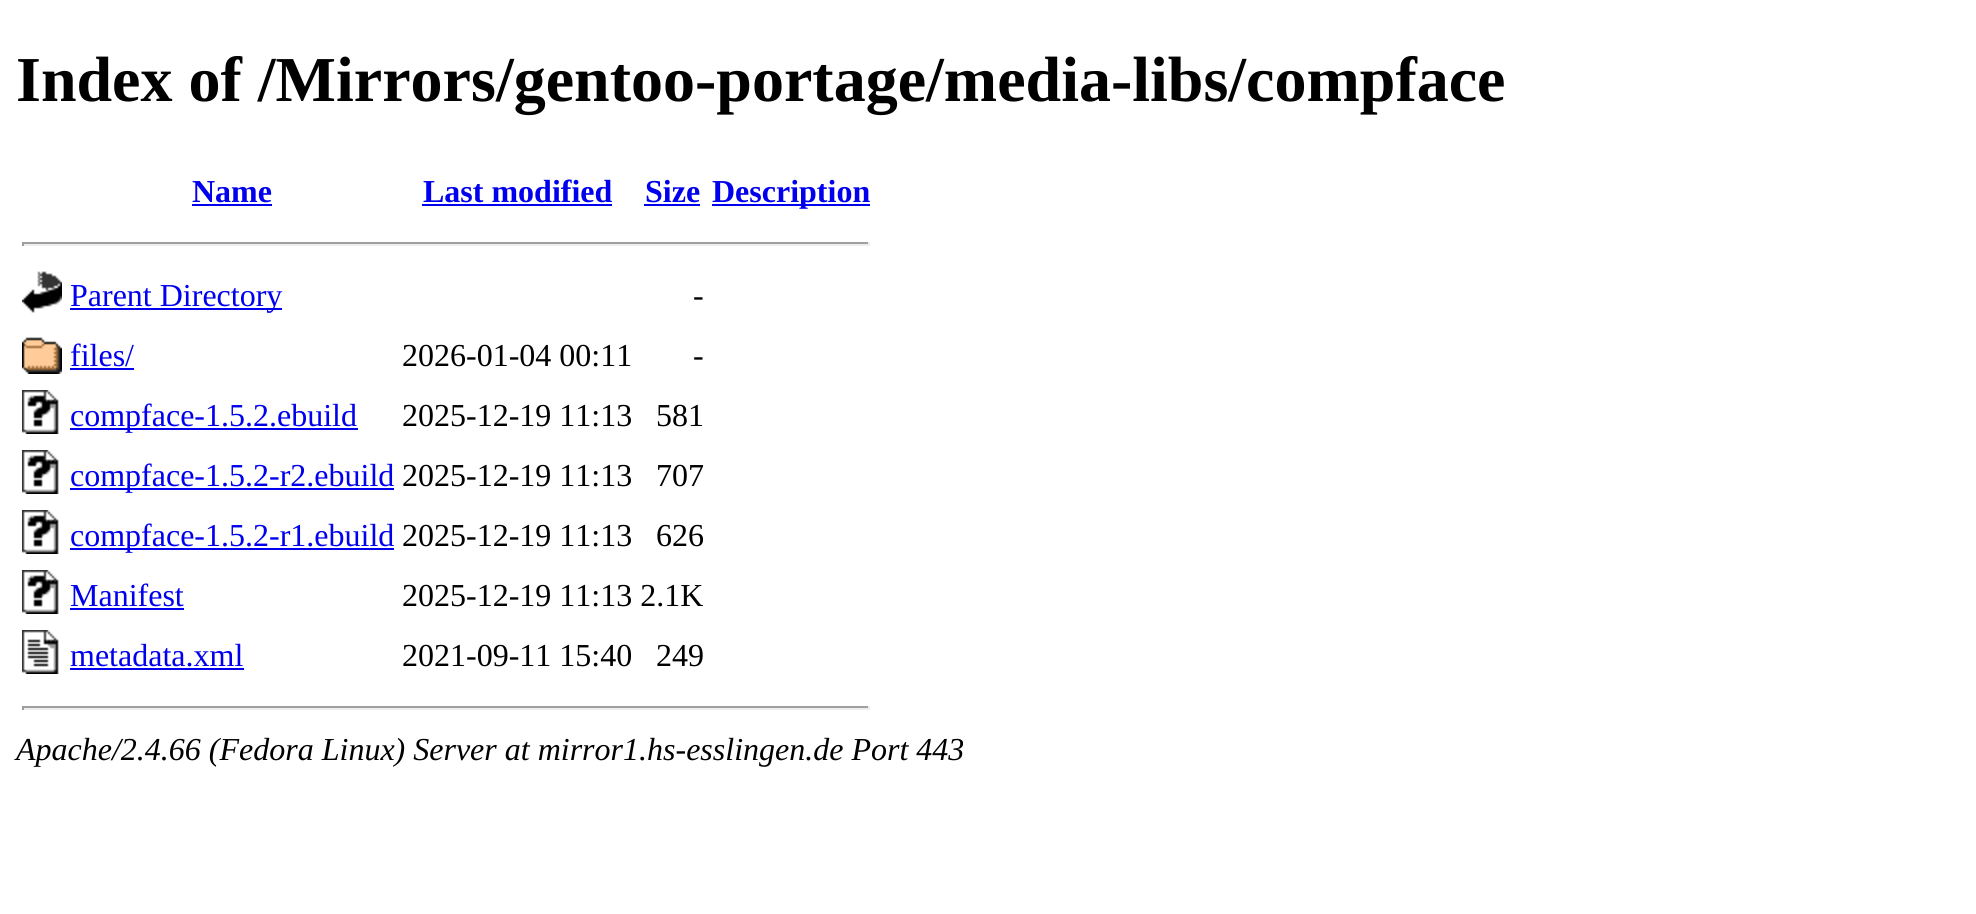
#include <cairo.h>
#include <math.h>
#include <stddef.h>


static void rgb(cairo_t *cr, int r, int g, int b)
{
	cairo_set_source_rgb(cr, r / 255.0, g / 255.0, b / 255.0);
}

static void face(cairo_t *cr, const char *family, double size, int italic, int bold)
{
	cairo_select_font_face(cr, family, italic ? CAIRO_FONT_SLANT_ITALIC : CAIRO_FONT_SLANT_NORMAL,
		bold ? CAIRO_FONT_WEIGHT_BOLD : CAIRO_FONT_WEIGHT_NORMAL);
	cairo_set_font_size(cr, size);
}

static void label(cairo_t *cr, double x, double y, const char *s)
{
	cairo_move_to(cr, x, y);
	cairo_show_text(cr, s);
}

static void rect(cairo_t *cr, double x, double y, double w, double h)
{
	cairo_rectangle(cr, x, y, w, h);
	cairo_fill(cr);
}

static void image(cairo_t *cr, const char *path, double x, double y, double w, double h)
{
	cairo_surface_t *image = cairo_image_surface_create_from_png(path);
	cairo_save(cr);
	cairo_set_source_surface(cr, image, x, y);
	cairo_rectangle(cr, x, y, w, h);
	cairo_fill(cr);
	cairo_restore(cr);
	cairo_surface_destroy(image);
}

static void draw(cairo_t *cr) {
	rgb(cr, 255, 255, 255);
	cairo_paint(cr);
	face(cr, "Liberation Serif", 64, 0, 1);
	rgb(cr, 0, 0, 0);
	label(cr, 16, 101, "Index of /Mirrors/gentoo-portage/media-libs/compface");
	face(cr, "Liberation Serif", 32, 0, 1);
	rgb(cr, 0, 0, 238);
	label(cr, 192, 202, "Name");
	rect(cr, 192, 204, 80, 2);
	label(cr, 423, 202, "Last modified");
	rect(cr, 422, 204, 190, 2);
	label(cr, 645, 202, "Size");
	rect(cr, 644, 204, 56, 2);
	rect(cr, 712, 204, 158, 2);
	label(cr, 712, 202, "Description");
	rgb(cr, 159, 159, 159);
	rect(cr, 22, 242, 848, 2);
	rgb(cr, 238, 238, 238);
	rect(cr, 868, 242, 2, 4);
	rect(cr, 22, 244, 848, 2);
	rgb(cr, 159, 159, 159);
	rect(cr, 22, 242, 2, 4);
	image(cr, "image0.png", 22, 271, 40, 42);
	rgb(cr, 0, 0, 238);
	rect(cr, 70, 308, 212, 2);
	face(cr, "Liberation Serif", 32, 0, 0);
	label(cr, 70, 306, "Parent Directory");
	rgb(cr, 0, 0, 0);
	label(cr, 693, 306, "-");
	image(cr, "image1.png", 22, 337, 40, 37);
	rgb(cr, 0, 0, 238);
	label(cr, 70, 366, "files/");
	rect(cr, 70, 368, 64, 2);
	rgb(cr, 0, 0, 0);
	label(cr, 402, 366, "2026-01-04 00:11");
	label(cr, 693, 366, "-");
	image(cr, "image2.png", 22, 390, 37, 44);
	rgb(cr, 0, 0, 238);
	rect(cr, 70, 428, 288, 2);
	label(cr, 70, 426, "compface-1.5.2.ebuild");
	rgb(cr, 0, 0, 0);
	label(cr, 402, 426, "2025-12-19 11:13");
	label(cr, 656, 426, "581");
	image(cr, "image2.png", 22, 450, 37, 44);
	rgb(cr, 0, 0, 238);
	rect(cr, 70, 488, 324, 2);
	label(cr, 70, 486, "compface-1.5.2-r2.ebuild");
	rgb(cr, 0, 0, 0);
	label(cr, 402, 486, "2025-12-19 11:13");
	label(cr, 656, 486, "707");
	image(cr, "image2.png", 22, 510, 37, 44);
	rgb(cr, 0, 0, 238);
	rect(cr, 70, 548, 324, 2);
	label(cr, 70, 546, "compface-1.5.2-r1.ebuild");
	rgb(cr, 0, 0, 0);
	label(cr, 402, 546, "2025-12-19 11:13");
	label(cr, 656, 546, "626");
	image(cr, "image2.png", 22, 570, 37, 44);
	rgb(cr, 0, 0, 238);
	label(cr, 70, 606, "Manifest");
	rect(cr, 70, 608, 114, 2);
	rgb(cr, 0, 0, 0);
	label(cr, 402, 606, "2025-12-19 11:13 2.1K");
	image(cr, "image3.png", 22, 630, 37, 44);
	rgb(cr, 0, 0, 238);
	label(cr, 70, 666, "metadata.xml");
	rect(cr, 70, 668, 174, 2);
	rgb(cr, 0, 0, 0);
	label(cr, 402, 666, "2021-09-11 15:40");
	label(cr, 656, 666, "249");
	rgb(cr, 159, 159, 159);
	rect(cr, 22, 706, 848, 2);
	rgb(cr, 238, 238, 238);
	rect(cr, 868, 706, 2, 4);
	rect(cr, 22, 708, 848, 2);
	rgb(cr, 159, 159, 159);
	rect(cr, 22, 706, 2, 4);
	face(cr, "Liberation Serif", 32, 1, 0);
	rgb(cr, 0, 0, 0);
	label(cr, 16, 760, "Apache/2.4.66 (Fedora Linux) Server at mirror1.hs-esslingen.de Port 443");
}

int main(void) {
	cairo_surface_t *surface = cairo_image_surface_create(CAIRO_FORMAT_RGB24, 1976, 914);
	cairo_t *cr = cairo_create(surface);
	cairo_font_options_t *options = cairo_font_options_create();
	cairo_font_options_set_hint_metrics(options, CAIRO_HINT_METRICS_OFF);
	cairo_font_options_set_hint_style(options, CAIRO_HINT_STYLE_NONE);
	cairo_set_font_options(cr, options);
	cairo_set_miter_limit(cr, 4);
	draw(cr);
	cairo_surface_write_to_png(surface, "render.png");
	cairo_font_options_destroy(options);
	cairo_destroy(cr);
	cairo_surface_destroy(surface);
	return 0;
}
